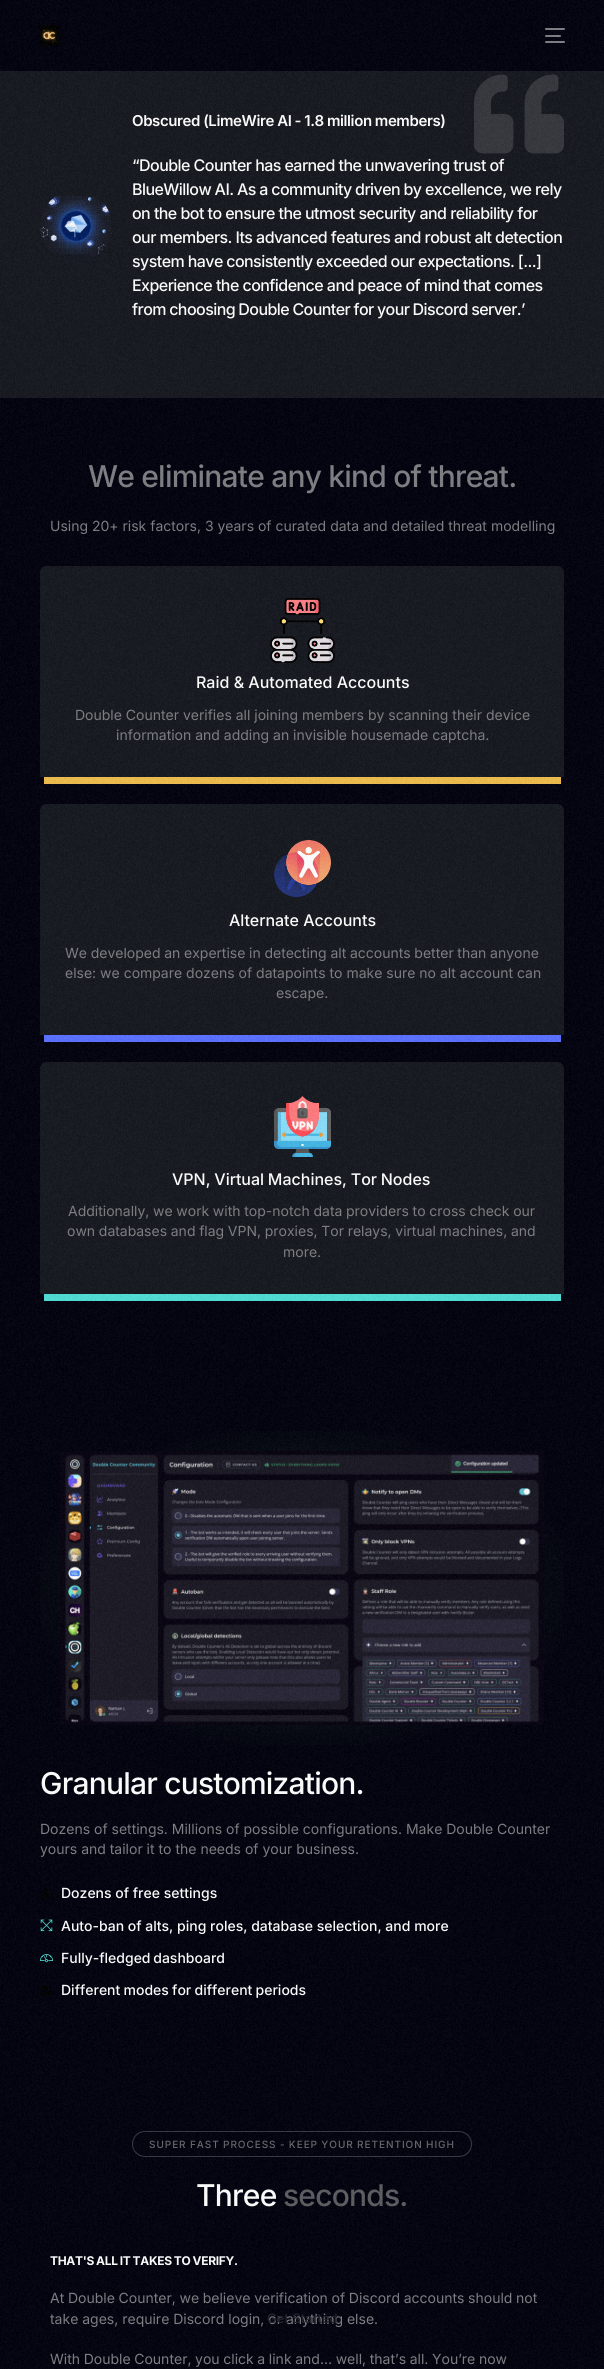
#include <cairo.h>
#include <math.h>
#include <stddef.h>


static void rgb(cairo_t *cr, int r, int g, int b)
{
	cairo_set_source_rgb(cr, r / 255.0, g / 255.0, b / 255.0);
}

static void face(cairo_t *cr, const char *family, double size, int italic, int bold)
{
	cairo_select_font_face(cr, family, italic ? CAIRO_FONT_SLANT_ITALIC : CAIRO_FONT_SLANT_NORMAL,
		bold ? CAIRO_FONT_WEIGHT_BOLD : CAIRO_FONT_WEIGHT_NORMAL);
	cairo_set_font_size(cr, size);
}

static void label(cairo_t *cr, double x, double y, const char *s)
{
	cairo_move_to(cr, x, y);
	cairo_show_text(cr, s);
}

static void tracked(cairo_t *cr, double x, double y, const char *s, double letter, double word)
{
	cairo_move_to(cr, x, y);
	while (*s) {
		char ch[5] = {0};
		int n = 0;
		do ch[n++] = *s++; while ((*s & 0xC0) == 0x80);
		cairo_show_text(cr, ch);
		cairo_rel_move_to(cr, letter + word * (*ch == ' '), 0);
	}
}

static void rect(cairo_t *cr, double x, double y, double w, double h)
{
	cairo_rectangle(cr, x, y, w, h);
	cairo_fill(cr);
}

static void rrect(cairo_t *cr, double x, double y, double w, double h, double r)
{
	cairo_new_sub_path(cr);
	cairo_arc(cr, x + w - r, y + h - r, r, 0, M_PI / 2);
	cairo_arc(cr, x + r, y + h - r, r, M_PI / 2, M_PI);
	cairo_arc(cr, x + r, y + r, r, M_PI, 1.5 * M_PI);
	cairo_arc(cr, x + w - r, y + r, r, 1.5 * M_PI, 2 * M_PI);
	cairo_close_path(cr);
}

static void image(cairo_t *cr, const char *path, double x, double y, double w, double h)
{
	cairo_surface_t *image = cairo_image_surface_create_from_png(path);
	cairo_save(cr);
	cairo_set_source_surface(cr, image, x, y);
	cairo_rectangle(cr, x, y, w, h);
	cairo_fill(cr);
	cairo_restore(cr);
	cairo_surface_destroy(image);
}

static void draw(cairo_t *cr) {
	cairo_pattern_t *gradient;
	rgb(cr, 0, 1, 13);
	cairo_paint(cr);
	image(cr, "image1.png", 39, 25, 21, 21);
	rgb(cr, 124, 126, 130);
	rrect(cr, 545, 28, 20, 2, 1);
	cairo_fill(cr);
	rrect(cr, 545, 35, 16, 2, 1);
	cairo_fill(cr);
	rrect(cr, 545, 41, 20, 2, 1);
	cairo_fill(cr);
	rgb(cr, 21, 24, 30);
	rect(cr, 0, 71, 604, 327);
	image(cr, "image2.png", 474, 74, 90, 80);
	image(cr, "image3.png", 40, 195, 72, 62);
	face(cr, "Inter SemiBold", 15, 0, 0);
	rgb(cr, 255, 255, 255);
	tracked(cr, 132, 126, "Obscured (LimeWire AI - 1.8 million members)", -0.4, -0.25);
	face(cr, "Inter Medium", 16, 0, 0);
	tracked(cr, 132, 171, "“Double Counter has earned the unwavering trust of", -0.55, 0);
	tracked(cr, 132, 195, "BlueWillow AI. As a community driven by excellence, we rely", -0.55, -0.25);
	tracked(cr, 132, 219, "on the bot to ensure the utmost security and reliability for", -0.55, 0);
	tracked(cr, 132, 243, "our members. Its advanced features and robust alt detection", -0.55, 0);
	tracked(cr, 132, 267, "system have consistently exceeded our expectations. [...]", -0.55, -0.25);
	tracked(cr, 132, 291, "Experience the confidence and peace of mind that comes", -0.55, 0);
	tracked(cr, 132, 315, "from choosing Double Counter for your Discord server.’", -0.55, -0.5);
	face(cr, "Inter Medium", 30, 0, 0);
	rgb(cr, 124, 126, 130);
	tracked(cr, 88, 487, "We eliminate any kind of threat.", -0.8, 0);
	face(cr, "Inter", 14, 0, 0);
	label(cr, 50, 531, "Using 20+ risk factors, 3 years of curated data and detailed threat modelling");
	rgb(cr, 21, 24, 30);
	cairo_new_path(cr);
	cairo_move_to(cr, 47, 566);
	cairo_line_to(cr, 557, 566);
	cairo_curve_to(cr, 561, 566, 564, 569, 564, 573);
	cairo_line_to(cr, 564, 777);
	cairo_line_to(cr, 40, 777);
	cairo_line_to(cr, 40, 573);
	cairo_curve_to(cr, 40, 569, 43, 566, 47, 566);
	cairo_close_path(cr);
	cairo_fill(cr);
	rgb(cr, 239, 189, 78);
	rect(cr, 44, 777, 517, 7);
	image(cr, "image4.png", 270, 598, 65, 65);
	face(cr, "Inter Medium", 16, 0, 0);
	rgb(cr, 255, 255, 255);
	label(cr, 196, 688, "Raid & Automated Accounts");
	face(cr, "Inter", 14, 0, 0);
	rgb(cr, 124, 126, 130);
	label(cr, 75, 720, "Double Counter verifies all joining members by scanning their device");
	label(cr, 116, 740, "information and adding an invisible housemade captcha.");
	rgb(cr, 21, 24, 30);
	cairo_new_path(cr);
	cairo_move_to(cr, 47, 804);
	cairo_line_to(cr, 557, 804);
	cairo_curve_to(cr, 561, 804, 564, 807, 564, 811);
	cairo_line_to(cr, 564, 1035);
	cairo_line_to(cr, 40, 1035);
	cairo_line_to(cr, 40, 811);
	cairo_curve_to(cr, 40, 807, 43, 804, 47, 804);
	cairo_close_path(cr);
	cairo_fill(cr);
	rgb(cr, 90, 112, 255);
	rect(cr, 44, 1035, 517, 7);
	image(cr, "image5.png", 274, 840, 57, 57);
	face(cr, "Inter Medium", 16, 0, 0);
	rgb(cr, 255, 255, 255);
	label(cr, 229, 926, "Alternate Accounts");
	face(cr, "Inter", 14, 0, 0);
	rgb(cr, 124, 126, 130);
	tracked(cr, 65, 958, "We developed an expertise in detecting alt accounts better than anyone", 0, -0.25);
	label(cr, 65, 978, "else: we compare dozens of datapoints to make sure no alt account can");
	label(cr, 276, 998, "escape.");
	rgb(cr, 21, 24, 30);
	cairo_new_path(cr);
	cairo_move_to(cr, 47, 1062);
	cairo_line_to(cr, 557, 1062);
	cairo_curve_to(cr, 561, 1062, 564, 1065, 564, 1069);
	cairo_line_to(cr, 564, 1294);
	cairo_line_to(cr, 40, 1294);
	cairo_line_to(cr, 40, 1069);
	cairo_curve_to(cr, 40, 1065, 43, 1062, 47, 1062);
	cairo_close_path(cr);
	cairo_fill(cr);
	rgb(cr, 79, 221, 212);
	rect(cr, 44, 1294, 517, 7);
	image(cr, "image6.png", 274, 1096, 57, 61);
	face(cr, "Inter Medium", 16, 0, 0);
	rgb(cr, 255, 255, 255);
	tracked(cr, 172, 1185, "VPN, Virtual Machines, Tor Nodes", 0, -0.5);
	face(cr, "Inter", 14, 0, 0);
	rgb(cr, 124, 126, 130);
	tracked(cr, 68, 1216, "Additionally, we work with top-notch data providers to cross check our", 0, -0.25);
	tracked(cr, 67, 1236, "own databases and flag VPN, proxies, Tor relays, virtual machines, and", 0, -0.25);
	label(cr, 283, 1257, "more.");
	gradient = cairo_pattern_create_radial(0, 0, 0, 0, 0, 1);
	cairo_pattern_set_matrix(gradient, &(cairo_matrix_t){1.0 / 371, 0, 0, 1.0 / 222, -1.0 * 302 / 371, -1.0 * 1588 / 222});
	cairo_pattern_add_color_stop_rgba(gradient, 0, 0.11, 0.173, 0.149, 1);
	cairo_pattern_add_color_stop_rgba(gradient, 0.75, 0, 0.004, 0.051, 1);
	cairo_set_source(cr, gradient);
	cairo_pattern_destroy(gradient);
	rect(cr, 40, 1431, 524, 314);
	image(cr, "image7.png", 60, 1451, 484, 274);
	face(cr, "Inter Medium", 30, 0, 0);
	rgb(cr, 255, 255, 255);
	tracked(cr, 40, 1794, "Granular customization.", -0.8, 0);
	face(cr, "Inter", 14, 0, 0);
	rgb(cr, 124, 126, 130);
	label(cr, 40, 1834, "Dozens of settings. Millions of possible configurations. Make Double Counter");
	label(cr, 40, 1854, "yours and tailor it to the needs of your business.");
	image(cr, "image8.png", 40, 1888, 13, 11);
	face(cr, "Inter Medium", 14, 0, 0);
	rgb(cr, 255, 255, 255);
	label(cr, 61, 1898, "Dozens of free settings");
	image(cr, "image9.png", 40, 1919, 13, 13);
	label(cr, 61, 1931, "Auto-ban of alts, ping roles, database selection, and more");
	image(cr, "image10.png", 40, 1954, 13, 9);
	tracked(cr, 61, 1963, "Fully-fledged dashboard", 0, -1);
	image(cr, "image11.png", 40, 1985, 13, 11);
	tracked(cr, 61, 1995, "Different modes for different periods", 0, -0.5);
	rrect(cr, 132.5, 2131.5, 339, 25, 12.5);
	rgb(cr, 55, 56, 62);
	cairo_set_line_width(cr, 1);
	cairo_stroke(cr);
	face(cr, "Inter Medium", 10, 0, 0);
	rgb(cr, 100, 104, 106);
	tracked(cr, 149, 2148, "SUPER FAST PROCESS - KEEP YOUR RETENTION HIGH", 0.95, -0.25);
	face(cr, "Inter Medium", 30, 0, 0);
	rgb(cr, 255, 255, 255);
	tracked(cr, 196, 2206, "Three", -0.8, 0);
	rgb(cr, 92, 92, 96);
	tracked(cr, 283, 2206, "seconds.", -0.8, 0);
	face(cr, "Inter", 12, 0, 1);
	rgb(cr, 255, 255, 255);
	tracked(cr, 50, 2265, "THAT'S ALL IT TAKES TO VERIFY.", -0.3, -0.5);
	face(cr, "Inter", 14, 0, 0);
	rgb(cr, 124, 126, 130);
	tracked(cr, 50, 2303, "At Double Counter, we believe verification of Discord accounts should not", 0, -0.25);
	label(cr, 50, 2324, "take ages, require Discord login, or anything else.");
	tracked(cr, 50, 2364, "With Double Counter, you click a link and… well, that’s all. You’re now", 0, -0.3);
	face(cr, "Inter Medium", 13, 0, 0);
	rgb(cr, 32, 34, 44);
	label(cr, 267, 2323, "Get Started");
	image(cr, "image0.png", 0, 0, 604, 2369);
}

int main(void) {
	cairo_surface_t *surface = cairo_image_surface_create(CAIRO_FORMAT_RGB24, 604, 2369);
	cairo_t *cr = cairo_create(surface);
	cairo_font_options_t *options = cairo_font_options_create();
	cairo_font_options_set_hint_metrics(options, CAIRO_HINT_METRICS_OFF);
	cairo_font_options_set_hint_style(options, CAIRO_HINT_STYLE_NONE);
	cairo_set_font_options(cr, options);
	cairo_set_miter_limit(cr, 4);
	draw(cr);
	cairo_surface_write_to_png(surface, "render.png");
	cairo_font_options_destroy(options);
	cairo_destroy(cr);
	cairo_surface_destroy(surface);
	return 0;
}
